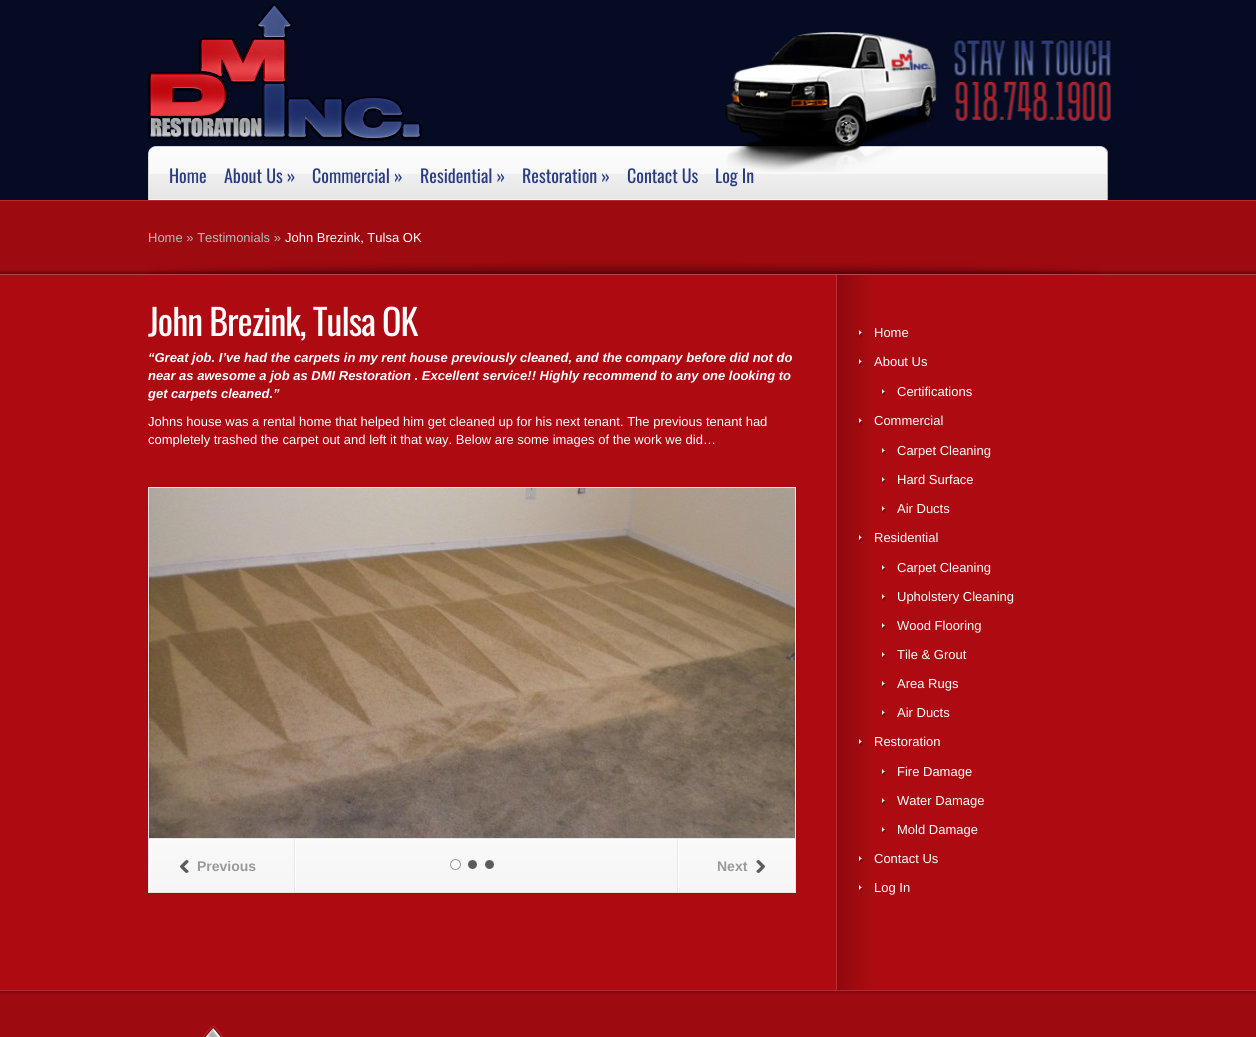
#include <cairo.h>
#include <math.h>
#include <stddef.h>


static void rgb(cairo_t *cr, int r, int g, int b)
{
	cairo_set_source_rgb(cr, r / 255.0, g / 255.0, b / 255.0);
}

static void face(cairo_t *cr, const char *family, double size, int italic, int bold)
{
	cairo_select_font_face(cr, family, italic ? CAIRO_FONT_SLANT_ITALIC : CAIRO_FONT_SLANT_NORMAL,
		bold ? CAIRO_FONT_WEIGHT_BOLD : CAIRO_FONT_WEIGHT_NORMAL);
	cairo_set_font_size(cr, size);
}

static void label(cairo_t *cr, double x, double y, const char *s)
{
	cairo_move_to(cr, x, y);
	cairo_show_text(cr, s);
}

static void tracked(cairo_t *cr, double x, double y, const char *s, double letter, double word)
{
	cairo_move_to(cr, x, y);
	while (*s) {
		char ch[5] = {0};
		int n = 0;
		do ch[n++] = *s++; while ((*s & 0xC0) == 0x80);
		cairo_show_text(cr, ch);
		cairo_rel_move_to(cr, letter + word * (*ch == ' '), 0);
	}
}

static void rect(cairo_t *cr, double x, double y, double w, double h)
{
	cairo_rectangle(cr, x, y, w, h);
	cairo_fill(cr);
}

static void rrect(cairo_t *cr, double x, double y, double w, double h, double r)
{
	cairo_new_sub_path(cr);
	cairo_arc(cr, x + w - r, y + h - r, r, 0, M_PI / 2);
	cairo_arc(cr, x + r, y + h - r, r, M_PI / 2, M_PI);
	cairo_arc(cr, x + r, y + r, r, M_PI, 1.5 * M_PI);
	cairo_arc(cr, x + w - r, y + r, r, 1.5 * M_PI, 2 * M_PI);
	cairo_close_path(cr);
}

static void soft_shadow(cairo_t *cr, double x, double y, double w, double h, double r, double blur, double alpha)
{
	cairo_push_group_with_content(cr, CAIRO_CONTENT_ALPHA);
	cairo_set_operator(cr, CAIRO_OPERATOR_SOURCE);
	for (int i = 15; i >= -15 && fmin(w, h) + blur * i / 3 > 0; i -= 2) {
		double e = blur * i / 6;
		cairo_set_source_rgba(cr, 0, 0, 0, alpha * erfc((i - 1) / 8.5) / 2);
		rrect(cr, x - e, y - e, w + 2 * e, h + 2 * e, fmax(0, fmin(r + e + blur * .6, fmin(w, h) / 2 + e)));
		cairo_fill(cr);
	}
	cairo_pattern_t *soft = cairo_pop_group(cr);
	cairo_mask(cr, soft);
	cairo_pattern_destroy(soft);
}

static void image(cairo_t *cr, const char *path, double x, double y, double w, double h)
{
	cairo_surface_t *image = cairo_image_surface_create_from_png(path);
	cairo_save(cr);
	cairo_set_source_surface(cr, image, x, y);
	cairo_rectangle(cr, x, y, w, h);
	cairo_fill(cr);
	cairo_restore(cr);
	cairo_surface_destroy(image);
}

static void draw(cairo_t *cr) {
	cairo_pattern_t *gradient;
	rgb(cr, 173, 11, 17);
	cairo_paint(cr);
	rgb(cr, 157, 10, 15);
	rect(cr, 0, 201, 1256, 74);
	rgb(cr, 5, 11, 34);
	rect(cr, 0, 0, 1256, 200);
	rgb(cr, 188, 41, 46);
	rect(cr, 0, 200, 1256, 1);
	image(cr, "image0.png", 148, 4, 274, 137);
	image(cr, "image2.png", 148, 146, 960, 54);
	face(cr, "Oswald", 18, 0, 0);
	rgb(cr, 42, 61, 131);
	label(cr, 715, 183, "Log In");
	image(cr, "image1.png", 725, 32, 386, 140);
	label(cr, 169, 183, "Home");
	label(cr, 224, 183, "About Us »");
	label(cr, 312, 183, "Commercial »");
	label(cr, 420, 183, "Residential »");
	label(cr, 522, 183, "Restoration »");
	label(cr, 627, 183, "Contact Us");
	image(cr, "image3.png", 0, 270, 1256, 5);
	image(cr, "image4.png", 0, 262, 1256, 13);
	face(cr, "Liberation Sans", 13, 0, 0);
	rgb(cr, 185, 185, 185);
	label(cr, 148, 242, "Home » Testimonials »");
	rgb(cr, 255, 255, 255);
	label(cr, 285, 242, "John Brezink, Tulsa OK");
	image(cr, "image5.png", 836, 275, 36, 715);
	face(cr, "Oswald", 36, 0, 0);
	tracked(cr, 148, 336, "John Brezink, Tulsa OK", -1, 0);
	face(cr, "Liberation Sans", 13, 1, 1);
	label(cr, 148, 362, "“Great job. I’ve had the carpets in my rent house previously cleaned, and the company before did not do");
	label(cr, 148, 380, "near as awesome a job as DMI Restoration . Excellent service!! Highly recommend to any one looking to");
	label(cr, 148, 398, "get carpets cleaned.”");
	face(cr, "Liberation Sans", 13, 0, 0);
	label(cr, 148, 426, "Johns house was a rental home that helped him get cleaned up for his next tenant. The previous tenant had");
	label(cr, 148, 444, "completely trashed the carpet out and left it that way. Below are some images of the work we did…");
	rgb(cr, 0, 0, 0);
	soft_shadow(cr, 148, 488, 648, 406, 0, 1, 0.1);
	cairo_rectangle(cr, 148.5, 487.5, 647, 405);
	rgb(cr, 231, 231, 231);
	cairo_set_line_width(cr, 1);
	cairo_stroke(cr);
	image(cr, "image6.png", 149, 488, 646, 350);
	gradient = cairo_pattern_create_linear(472, 839, 472, 892);
	cairo_pattern_add_color_stop_rgba(gradient, 0, 0.976, 0.976, 0.976, 1);
	cairo_pattern_add_color_stop_rgba(gradient, 1, 0.961, 0.961, 0.961, 1);
	cairo_set_source(cr, gradient);
	cairo_pattern_destroy(gradient);
	rect(cr, 150, 840, 645, 52);
	cairo_save(cr);
	cairo_rectangle(cr, 149, 839, 646, 53);
	cairo_clip(cr);
	rgb(cr, 255, 255, 255);
	cairo_set_fill_rule(cr, CAIRO_FILL_RULE_EVEN_ODD);
	cairo_new_path(cr);
	cairo_move_to(cr, 50, 740);
	cairo_line_to(cr, 894, 740);
	cairo_line_to(cr, 894, 991);
	cairo_line_to(cr, 50, 991);
	cairo_close_path(cr);
	cairo_move_to(cr, 150, 840);
	cairo_line_to(cr, 796, 840);
	cairo_line_to(cr, 796, 893);
	cairo_line_to(cr, 150, 893);
	cairo_close_path(cr);
	cairo_fill(cr);
	cairo_restore(cr);
	rgb(cr, 231, 231, 231);
	rect(cr, 149, 838, 646, 1);
	image(cr, "image7.png", 450, 859, 11, 11);
	image(cr, "image8.png", 468, 860, 9, 10);
	image(cr, "image8.png", 485, 860, 9, 10);
	rgb(cr, 255, 255, 255);
	rect(cr, 295, 839, 1, 52);
	rgb(cr, 231, 231, 231);
	rect(cr, 294, 839, 1, 52);
	image(cr, "image9.png", 180, 860, 9, 14);
	face(cr, "Liberation Sans", 14, 0, 1);
	rgb(cr, 153, 153, 153);
	label(cr, 197, 871, "Previous");
	rgb(cr, 231, 231, 231);
	rect(cr, 677, 839, 1, 52);
	rgb(cr, 255, 255, 255);
	rect(cr, 678, 839, 1, 52);
	rgb(cr, 153, 153, 153);
	label(cr, 717, 871, "Next");
	image(cr, "image10.png", 756, 860, 9, 14);
	image(cr, "image11.png", 859, 330, 4, 7);
	face(cr, "Liberation Sans", 13, 0, 0);
	rgb(cr, 255, 255, 255);
	label(cr, 874, 337, "Home");
	image(cr, "image11.png", 859, 359, 4, 7);
	label(cr, 874, 366, "About Us");
	image(cr, "image12.png", 882, 389, 4, 7);
	label(cr, 897, 396, "Certifications");
	image(cr, "image11.png", 859, 418, 4, 7);
	label(cr, 874, 425, "Commercial");
	image(cr, "image12.png", 882, 448, 4, 7);
	label(cr, 897, 455, "Carpet Cleaning");
	image(cr, "image12.png", 882, 477, 4, 7);
	label(cr, 897, 484, "Hard Surface");
	image(cr, "image12.png", 882, 506, 4, 7);
	label(cr, 897, 513, "Air Ducts");
	image(cr, "image11.png", 859, 535, 4, 7);
	label(cr, 874, 542, "Residential");
	image(cr, "image12.png", 882, 565, 4, 7);
	label(cr, 897, 572, "Carpet Cleaning");
	image(cr, "image12.png", 882, 594, 4, 7);
	label(cr, 897, 601, "Upholstery Cleaning");
	image(cr, "image12.png", 882, 623, 4, 7);
	label(cr, 897, 630, "Wood Flooring");
	image(cr, "image12.png", 882, 652, 4, 7);
	label(cr, 897, 659, "Tile & Grout");
	image(cr, "image12.png", 882, 681, 4, 7);
	label(cr, 897, 688, "Area Rugs");
	image(cr, "image12.png", 882, 710, 4, 7);
	label(cr, 897, 717, "Air Ducts");
	image(cr, "image11.png", 859, 739, 4, 7);
	label(cr, 874, 746, "Restoration");
	image(cr, "image12.png", 882, 769, 4, 7);
	label(cr, 897, 776, "Fire Damage");
	image(cr, "image12.png", 882, 798, 4, 7);
	label(cr, 897, 805, "Water Damage");
	image(cr, "image12.png", 882, 827, 4, 7);
	label(cr, 897, 834, "Mold Damage");
	image(cr, "image11.png", 859, 856, 4, 7);
	label(cr, 874, 863, "Contact Us");
	image(cr, "image11.png", 859, 885, 4, 7);
	label(cr, 874, 892, "Log In");
	rgb(cr, 157, 10, 15);
	rect(cr, 0, 990, 1256, 47);
	image(cr, "image13.png", 0, 990, 1256, 5);
	image(cr, "image14.png", 203, 1025, 21, 12);
}

int main(void) {
	cairo_surface_t *surface = cairo_image_surface_create(CAIRO_FORMAT_RGB24, 1256, 1037);
	cairo_t *cr = cairo_create(surface);
	cairo_font_options_t *options = cairo_font_options_create();
	cairo_font_options_set_hint_metrics(options, CAIRO_HINT_METRICS_OFF);
	cairo_font_options_set_hint_style(options, CAIRO_HINT_STYLE_NONE);
	cairo_set_font_options(cr, options);
	cairo_set_miter_limit(cr, 4);
	draw(cr);
	cairo_surface_write_to_png(surface, "render.png");
	cairo_font_options_destroy(options);
	cairo_destroy(cr);
	cairo_surface_destroy(surface);
	return 0;
}
